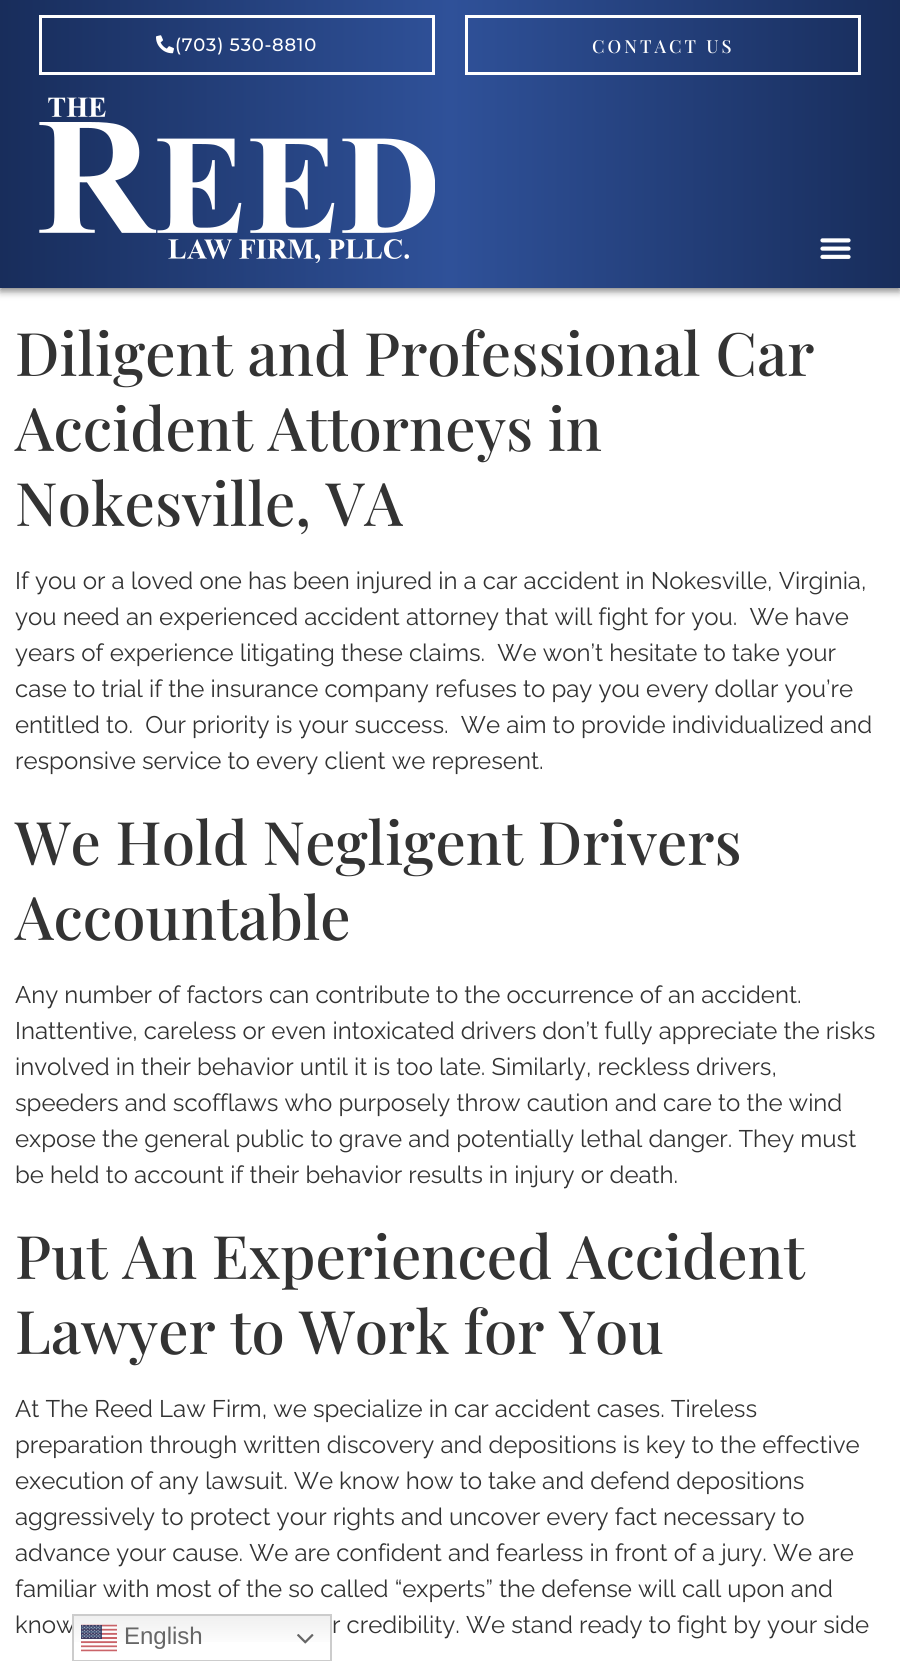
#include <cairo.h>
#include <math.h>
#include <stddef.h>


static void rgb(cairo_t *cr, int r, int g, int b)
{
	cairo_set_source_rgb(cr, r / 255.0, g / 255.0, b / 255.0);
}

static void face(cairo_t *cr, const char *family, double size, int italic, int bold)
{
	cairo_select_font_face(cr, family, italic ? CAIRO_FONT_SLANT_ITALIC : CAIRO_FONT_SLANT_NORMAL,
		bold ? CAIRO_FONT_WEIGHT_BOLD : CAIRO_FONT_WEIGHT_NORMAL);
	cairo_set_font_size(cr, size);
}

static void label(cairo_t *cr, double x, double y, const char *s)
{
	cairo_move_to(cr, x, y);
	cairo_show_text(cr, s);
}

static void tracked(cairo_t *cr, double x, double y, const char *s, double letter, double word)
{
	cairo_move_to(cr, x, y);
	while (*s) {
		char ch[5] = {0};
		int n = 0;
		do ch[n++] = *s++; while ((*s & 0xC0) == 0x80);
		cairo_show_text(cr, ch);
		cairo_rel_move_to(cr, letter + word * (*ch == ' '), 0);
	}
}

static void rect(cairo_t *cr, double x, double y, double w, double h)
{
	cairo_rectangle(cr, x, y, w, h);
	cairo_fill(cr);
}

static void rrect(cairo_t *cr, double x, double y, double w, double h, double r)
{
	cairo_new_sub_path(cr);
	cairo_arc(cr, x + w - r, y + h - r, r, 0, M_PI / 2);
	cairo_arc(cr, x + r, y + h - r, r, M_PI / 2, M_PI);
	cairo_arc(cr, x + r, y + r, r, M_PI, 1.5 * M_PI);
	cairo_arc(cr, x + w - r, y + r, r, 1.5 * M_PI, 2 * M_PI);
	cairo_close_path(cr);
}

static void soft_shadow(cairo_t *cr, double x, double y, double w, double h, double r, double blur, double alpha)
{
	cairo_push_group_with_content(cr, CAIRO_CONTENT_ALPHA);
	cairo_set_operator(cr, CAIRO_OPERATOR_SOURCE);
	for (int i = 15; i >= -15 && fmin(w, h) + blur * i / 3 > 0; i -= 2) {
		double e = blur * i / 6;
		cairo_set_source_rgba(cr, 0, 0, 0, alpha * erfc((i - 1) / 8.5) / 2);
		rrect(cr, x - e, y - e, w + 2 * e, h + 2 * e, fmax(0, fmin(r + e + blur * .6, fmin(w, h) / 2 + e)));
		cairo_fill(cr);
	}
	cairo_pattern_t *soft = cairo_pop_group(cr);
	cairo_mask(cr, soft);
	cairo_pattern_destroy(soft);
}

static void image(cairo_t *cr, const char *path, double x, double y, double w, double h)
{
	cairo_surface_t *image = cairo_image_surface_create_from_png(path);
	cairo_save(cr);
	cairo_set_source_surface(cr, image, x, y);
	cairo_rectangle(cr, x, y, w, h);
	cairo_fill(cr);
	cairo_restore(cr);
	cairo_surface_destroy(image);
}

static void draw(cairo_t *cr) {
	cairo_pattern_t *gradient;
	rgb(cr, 255, 255, 255);
	cairo_paint(cr);
	rgb(cr, 0, 0, 0);
	soft_shadow(cr, 0, 3, 900, 288, 0, 4, 0.5);
	gradient = cairo_pattern_create_linear(900, 144, 0, 144);
	cairo_pattern_add_color_stop_rgba(gradient, 0, 0.094, 0.176, 0.357, 1);
	cairo_pattern_add_color_stop_rgba(gradient, 0.5, 0.184, 0.318, 0.6, 1);
	cairo_pattern_add_color_stop_rgba(gradient, 1, 0.094, 0.176, 0.357, 1);
	cairo_set_source(cr, gradient);
	cairo_pattern_destroy(gradient);
	rect(cr, 0, 0, 900, 288);
	cairo_rectangle(cr, 40.5, 16.5, 393, 57);
	rgb(cr, 255, 255, 255);
	cairo_set_line_width(cr, 3);
	cairo_stroke(cr);
	image(cr, "image0.png", 156, 35, 18, 19);
	face(cr, "Montserrat Medium", 18, 0, 0);
	tracked(cr, 175, 51, "(703) 530-8810", 0.75, 0);
	cairo_rectangle(cr, 466.5, 16.5, 393, 57);
	cairo_stroke(cr);
	face(cr, "Playfair Display Medium", 18, 0, 0);
	tracked(cr, 592, 53, "CONTACT US", 3, 0);
	image(cr, "image1.png", 39, 97, 396, 166);
	image(cr, "image2.png", 820, 238, 31, 21);
	face(cr, "Playfair Display Medium", 60, 0, 0);
	rgb(cr, 51, 51, 51);
	label(cr, 15, 376, "Diligent and Professional Car");
	label(cr, 15, 451, "Accident Attorneys in");
	label(cr, 15, 526, "Nokesville, VA");
	face(cr, "Raleway", 24, 0, 0);
	label(cr, 15, 589, "If you or a loved one has been injured in a car accident in Nokesville, Virginia,");
	label(cr, 15, 625, "you need an experienced accident attorney that will fight for you.  We have");
	label(cr, 15, 661, "years of experience litigating these claims.  We won’t hesitate to take your");
	label(cr, 15, 697, "case to trial if the insurance company refuses to pay you every dollar you’re");
	label(cr, 15, 733, "entitled to.  Our priority is your success.  We aim to provide individualized and");
	label(cr, 15, 769, "responsive service to every client we represent.");
	face(cr, "Playfair Display Medium", 60, 0, 0);
	label(cr, 15, 865, "We Hold Negligent Drivers");
	label(cr, 15, 940, "Accountable");
	face(cr, "Raleway", 24, 0, 0);
	label(cr, 15, 1003, "Any number of factors can contribute to the occurrence of an accident.");
	label(cr, 15, 1039, "Inattentive, careless or even intoxicated drivers don’t fully appreciate the risks");
	label(cr, 15, 1075, "involved in their behavior until it is too late. Similarly, reckless drivers,");
	label(cr, 15, 1111, "speeders and scofflaws who purposely throw caution and care to the wind");
	label(cr, 15, 1147, "expose the general public to grave and potentially lethal danger. They must");
	label(cr, 15, 1183, "be held to account if their behavior results in injury or death.");
	face(cr, "Playfair Display Medium", 60, 0, 0);
	label(cr, 15, 1279, "Put An Experienced Accident");
	label(cr, 15, 1354, "Lawyer to Work for You");
	face(cr, "Raleway", 24, 0, 0);
	label(cr, 15, 1417, "At The Reed Law Firm, we specialize in car accident cases. Tireless");
	label(cr, 15, 1453, "preparation through written discovery and depositions is key to the effective");
	label(cr, 15, 1489, "execution of any lawsuit. We know how to take and defend depositions");
	label(cr, 15, 1525, "aggressively to protect your rights and uncover every fact necessary to");
	label(cr, 15, 1561, "advance your cause. We are confident and fearless in front of a jury. We are");
	label(cr, 15, 1597, "familiar with most of the so called “experts” the defense will call upon and");
	label(cr, 15, 1633, "know");
	label(cr, 332, 1633, "r credibility. We stand ready to fight by your side");
	gradient = cairo_pattern_create_linear(202, 1614, 202, 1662);
	cairo_pattern_add_color_stop_rgba(gradient, 0, 0.937, 0.937, 0.937, 1);
	cairo_pattern_add_color_stop_rgba(gradient, 0.7, 1, 1, 1, 1);
	cairo_set_source(cr, gradient);
	cairo_pattern_destroy(gradient);
	rect(cr, 74, 1616, 256, 26);
	cairo_rectangle(cr, 73, 1615, 258, 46);
	rgb(cr, 204, 204, 204);
	cairo_set_line_width(cr, 2);
	cairo_stroke(cr);
	image(cr, "image3.png", 81, 1624, 36, 28);
	face(cr, "Liberation Sans", 24, 0, 0);
	rgb(cr, 102, 102, 102);
	label(cr, 124, 1644, "English");
	image(cr, "image4.png", 297, 1634, 17, 10);
}

int main(void) {
	cairo_surface_t *surface = cairo_image_surface_create(CAIRO_FORMAT_RGB24, 900, 1661);
	cairo_t *cr = cairo_create(surface);
	cairo_font_options_t *options = cairo_font_options_create();
	cairo_font_options_set_hint_metrics(options, CAIRO_HINT_METRICS_OFF);
	cairo_font_options_set_hint_style(options, CAIRO_HINT_STYLE_NONE);
	cairo_set_font_options(cr, options);
	cairo_set_miter_limit(cr, 4);
	draw(cr);
	cairo_surface_write_to_png(surface, "render.png");
	cairo_font_options_destroy(options);
	cairo_destroy(cr);
	cairo_surface_destroy(surface);
	return 0;
}
